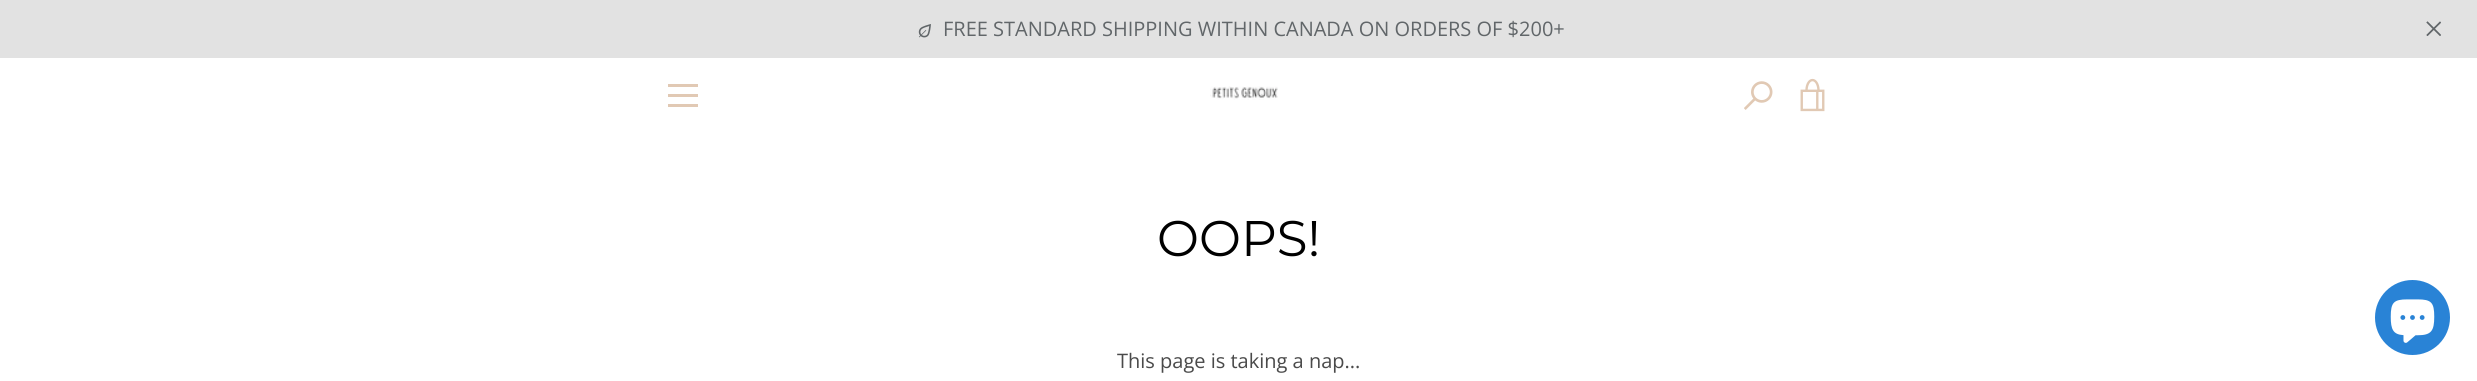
#include <cairo.h>
#include <math.h>
#include <stddef.h>


static void rgb(cairo_t *cr, int r, int g, int b)
{
	cairo_set_source_rgb(cr, r / 255.0, g / 255.0, b / 255.0);
}

static void face(cairo_t *cr, const char *family, double size, int italic, int bold)
{
	cairo_select_font_face(cr, family, italic ? CAIRO_FONT_SLANT_ITALIC : CAIRO_FONT_SLANT_NORMAL,
		bold ? CAIRO_FONT_WEIGHT_BOLD : CAIRO_FONT_WEIGHT_NORMAL);
	cairo_set_font_size(cr, size);
}

static void label(cairo_t *cr, double x, double y, const char *s)
{
	cairo_move_to(cr, x, y);
	cairo_show_text(cr, s);
}

static void rect(cairo_t *cr, double x, double y, double w, double h)
{
	cairo_rectangle(cr, x, y, w, h);
	cairo_fill(cr);
}

static void image(cairo_t *cr, const char *path, double x, double y, double w, double h)
{
	cairo_surface_t *image = cairo_image_surface_create_from_png(path);
	cairo_save(cr);
	cairo_set_source_surface(cr, image, x, y);
	cairo_rectangle(cr, x, y, w, h);
	cairo_fill(cr);
	cairo_restore(cr);
	cairo_surface_destroy(image);
}

static void draw(cairo_t *cr) {
	rgb(cr, 255, 255, 255);
	cairo_paint(cr);
	rgb(cr, 226, 226, 226);
	rect(cr, 0, 0, 2477, 58);
	image(cr, "image0.png", 918, 24, 13, 14);
	face(cr, "Open Sans", 20, 0, 0);
	rgb(cr, 97, 102, 105);
	label(cr, 943, 36, "FREE STANDARD SHIPPING WITHIN CANADA ON ORDERS OF $200+");
	image(cr, "image1.png", 2426, 21, 15, 15);
	rgb(cr, 225, 201, 180);
	rect(cr, 668, 84, 30, 3);
	rect(cr, 668, 94, 30, 3);
	rect(cr, 668, 104, 30, 3);
	image(cr, "image2.png", 1210, 86, 68, 14);
	image(cr, "image3.png", 1744, 81, 29, 29);
	image(cr, "image4.png", 1800, 78, 25, 34);
	face(cr, "Montserrat", 50, 0, 0);
	rgb(cr, 0, 0, 0);
	label(cr, 1157, 256, "OOPS!");
	face(cr, "Open Sans", 20, 0, 0);
	rgb(cr, 74, 74, 74);
	label(cr, 1117, 368, "This page is taking a nap...");
	rgb(cr, 41, 131, 214);
	cairo_new_path(cr);
	cairo_arc(cr, 2412.5, 317.5, 37.5, 0, 2 * M_PI);
	cairo_fill(cr);
	image(cr, "image5.png", 2390, 299, 45, 44);
}

int main(void) {
	cairo_surface_t *surface = cairo_image_surface_create(CAIRO_FORMAT_RGB24, 2477, 381);
	cairo_t *cr = cairo_create(surface);
	cairo_font_options_t *options = cairo_font_options_create();
	cairo_font_options_set_hint_metrics(options, CAIRO_HINT_METRICS_OFF);
	cairo_font_options_set_hint_style(options, CAIRO_HINT_STYLE_NONE);
	cairo_set_font_options(cr, options);
	cairo_set_miter_limit(cr, 4);
	draw(cr);
	cairo_surface_write_to_png(surface, "render.png");
	cairo_font_options_destroy(options);
	cairo_destroy(cr);
	cairo_surface_destroy(surface);
	return 0;
}
